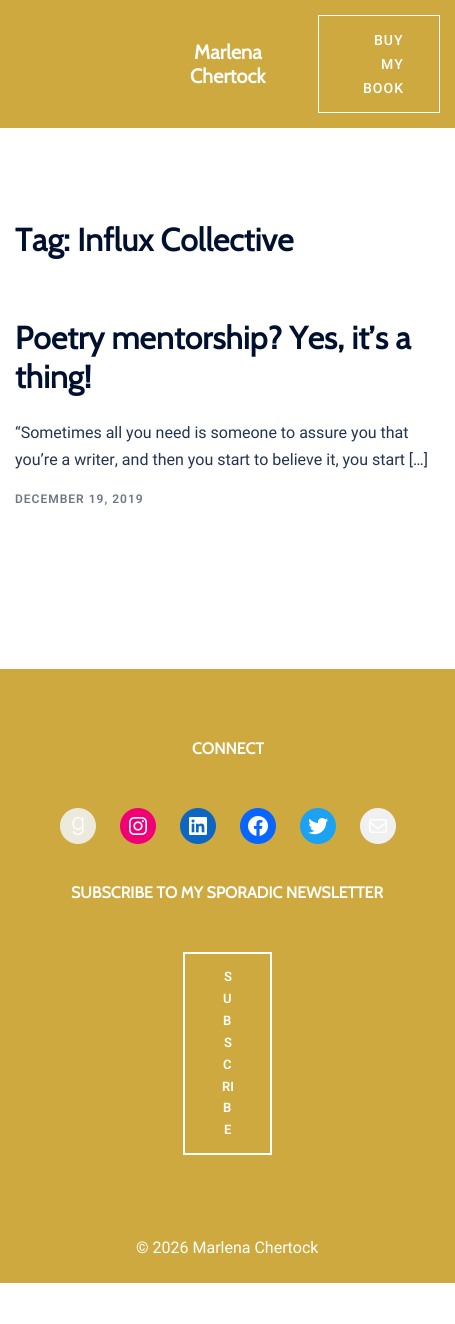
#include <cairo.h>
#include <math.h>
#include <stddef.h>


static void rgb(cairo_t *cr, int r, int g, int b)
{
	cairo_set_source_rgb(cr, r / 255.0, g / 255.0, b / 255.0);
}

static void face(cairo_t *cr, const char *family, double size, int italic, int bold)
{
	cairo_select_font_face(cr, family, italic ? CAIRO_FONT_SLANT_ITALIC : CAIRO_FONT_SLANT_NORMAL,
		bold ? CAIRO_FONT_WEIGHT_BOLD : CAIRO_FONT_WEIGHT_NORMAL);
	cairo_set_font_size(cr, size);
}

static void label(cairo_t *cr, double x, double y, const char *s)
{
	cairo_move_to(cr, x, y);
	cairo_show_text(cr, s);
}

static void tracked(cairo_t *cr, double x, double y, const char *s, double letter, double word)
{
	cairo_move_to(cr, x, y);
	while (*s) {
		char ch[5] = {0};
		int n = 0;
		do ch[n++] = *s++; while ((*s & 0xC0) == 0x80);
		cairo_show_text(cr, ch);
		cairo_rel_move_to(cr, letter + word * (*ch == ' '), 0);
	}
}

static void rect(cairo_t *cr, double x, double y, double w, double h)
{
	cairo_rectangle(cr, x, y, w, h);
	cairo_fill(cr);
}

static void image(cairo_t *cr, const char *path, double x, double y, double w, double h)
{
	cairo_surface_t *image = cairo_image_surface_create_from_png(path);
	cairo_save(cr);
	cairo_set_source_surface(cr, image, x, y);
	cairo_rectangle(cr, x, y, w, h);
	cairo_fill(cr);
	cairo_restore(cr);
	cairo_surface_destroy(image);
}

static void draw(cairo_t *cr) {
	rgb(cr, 255, 255, 255);
	cairo_paint(cr);
	rgb(cr, 205, 169, 63);
	rect(cr, 0, 0, 455, 128);
	face(cr, "Cabin", 20, 0, 1);
	rgb(cr, 255, 255, 255);
	label(cr, 194, 59, "Marlena");
	label(cr, 190, 83, "Chertock");
	cairo_rectangle(cr, 318.5, 15.5, 121, 97);
	cairo_set_line_width(cr, 1);
	cairo_stroke(cr);
	face(cr, "Roboto Medium", 14, 0, 0);
	tracked(cr, 374, 45, "BUY", 1, 0);
	tracked(cr, 381, 69, "MY", 1, 0);
	tracked(cr, 363, 93, "BOOK", 1, 0);
	face(cr, "Cabin", 32, 0, 1);
	rgb(cr, 0, 16, 46);
	label(cr, 15, 251, "Tag: Influx Collective");
	label(cr, 15, 349, "Poetry mentorship? Yes, it’s a");
	label(cr, 15, 388, "thing!");
	face(cr, "Roboto", 16, 0, 0);
	rgb(cr, 35, 52, 82);
	label(cr, 15, 438, "“Sometimes all you need is someone to assure you that");
	label(cr, 15, 465, "you’re a writer, and then you start to believe it, you start […]");
	face(cr, "Roboto SemiBold", 12, 0, 0);
	rgb(cr, 109, 118, 133);
	tracked(cr, 15, 503, "DECEMBER 19, 2019", 1, 0);
	rgb(cr, 205, 169, 63);
	rect(cr, 0, 669, 455, 614);
	face(cr, "Cabin", 16, 0, 1);
	rgb(cr, 255, 255, 255);
	label(cr, 192, 754, "CONNECT");
	rgb(cr, 236, 234, 221);
	cairo_new_path(cr);
	cairo_arc(cr, 78, 826, 18, 0, 2 * M_PI);
	cairo_fill(cr);
	image(cr, "image0.png", 72, 817, 12, 18);
	rgb(cr, 240, 0, 117);
	cairo_arc(cr, 138, 826, 18, 0, 2 * M_PI);
	cairo_fill(cr);
	image(cr, "image1.png", 129, 817, 18, 18);
	rgb(cr, 13, 102, 194);
	cairo_arc(cr, 198, 826, 18, 0, 2 * M_PI);
	cairo_fill(cr);
	image(cr, "image2.png", 189, 817, 18, 18);
	rgb(cr, 8, 102, 255);
	cairo_arc(cr, 258, 826, 18, 0, 2 * M_PI);
	cairo_fill(cr);
	image(cr, "image3.png", 248, 816, 20, 20);
	rgb(cr, 29, 161, 242);
	cairo_arc(cr, 318, 826, 18, 0, 2 * M_PI);
	cairo_fill(cr);
	image(cr, "image4.png", 308, 818, 20, 17);
	rgb(cr, 240, 240, 240);
	cairo_arc(cr, 378, 826, 18, 0, 2 * M_PI);
	cairo_fill(cr);
	image(cr, "image5.png", 369, 819, 18, 14);
	rgb(cr, 255, 255, 255);
	label(cr, 71, 898, "SUBSCRIBE TO MY SPORADIC NEWSLETTER");
	cairo_rectangle(cr, 184, 953, 87, 201);
	cairo_set_line_width(cr, 2);
	cairo_stroke(cr);
	face(cr, "Roboto SemiBold", 13, 0, 0);
	label(cr, 224, 981, "S");
	label(cr, 223, 1003, "U");
	label(cr, 223, 1025, "B");
	label(cr, 224, 1047, "S");
	label(cr, 223, 1069, "C");
	label(cr, 222, 1091, "RI");
	label(cr, 223, 1112, "B");
	label(cr, 224, 1134, "E");
	face(cr, "Roboto", 16, 0, 0);
	label(cr, 136, 1253, "© 2026 Marlena Chertock");
}

int main(void) {
	cairo_surface_t *surface = cairo_image_surface_create(CAIRO_FORMAT_RGB24, 455, 1324);
	cairo_t *cr = cairo_create(surface);
	cairo_font_options_t *options = cairo_font_options_create();
	cairo_font_options_set_hint_metrics(options, CAIRO_HINT_METRICS_OFF);
	cairo_font_options_set_hint_style(options, CAIRO_HINT_STYLE_NONE);
	cairo_set_font_options(cr, options);
	cairo_set_miter_limit(cr, 4);
	draw(cr);
	cairo_surface_write_to_png(surface, "render.png");
	cairo_font_options_destroy(options);
	cairo_destroy(cr);
	cairo_surface_destroy(surface);
	return 0;
}
